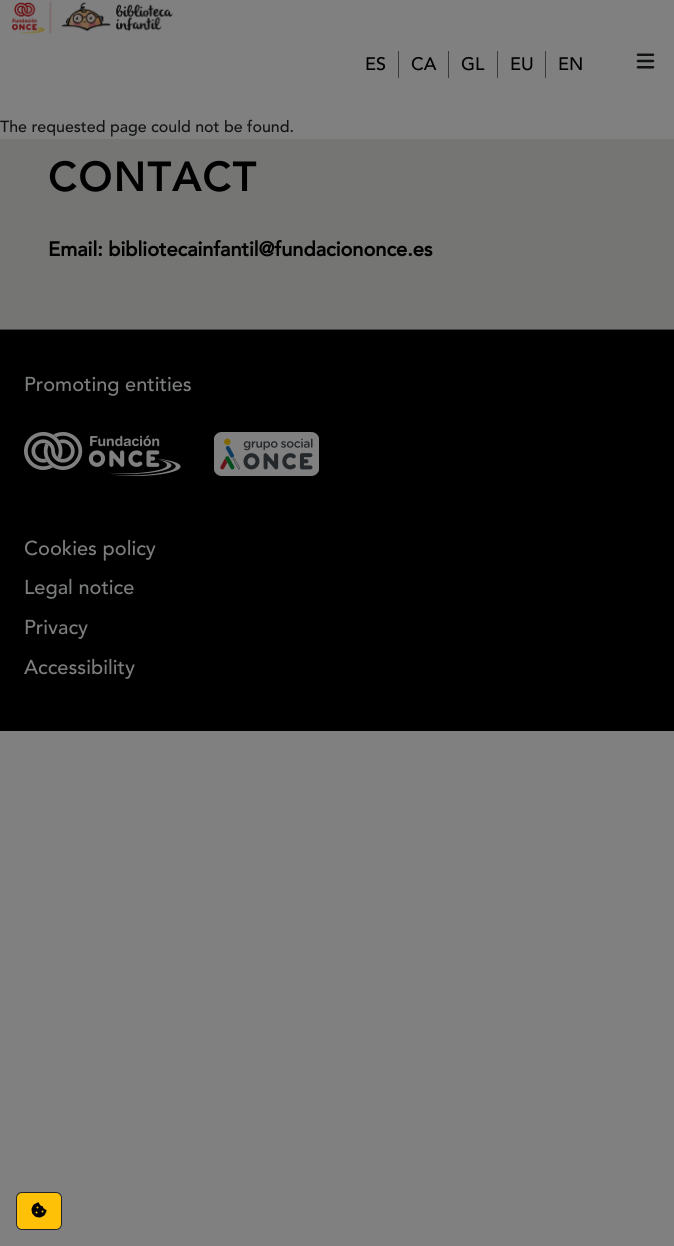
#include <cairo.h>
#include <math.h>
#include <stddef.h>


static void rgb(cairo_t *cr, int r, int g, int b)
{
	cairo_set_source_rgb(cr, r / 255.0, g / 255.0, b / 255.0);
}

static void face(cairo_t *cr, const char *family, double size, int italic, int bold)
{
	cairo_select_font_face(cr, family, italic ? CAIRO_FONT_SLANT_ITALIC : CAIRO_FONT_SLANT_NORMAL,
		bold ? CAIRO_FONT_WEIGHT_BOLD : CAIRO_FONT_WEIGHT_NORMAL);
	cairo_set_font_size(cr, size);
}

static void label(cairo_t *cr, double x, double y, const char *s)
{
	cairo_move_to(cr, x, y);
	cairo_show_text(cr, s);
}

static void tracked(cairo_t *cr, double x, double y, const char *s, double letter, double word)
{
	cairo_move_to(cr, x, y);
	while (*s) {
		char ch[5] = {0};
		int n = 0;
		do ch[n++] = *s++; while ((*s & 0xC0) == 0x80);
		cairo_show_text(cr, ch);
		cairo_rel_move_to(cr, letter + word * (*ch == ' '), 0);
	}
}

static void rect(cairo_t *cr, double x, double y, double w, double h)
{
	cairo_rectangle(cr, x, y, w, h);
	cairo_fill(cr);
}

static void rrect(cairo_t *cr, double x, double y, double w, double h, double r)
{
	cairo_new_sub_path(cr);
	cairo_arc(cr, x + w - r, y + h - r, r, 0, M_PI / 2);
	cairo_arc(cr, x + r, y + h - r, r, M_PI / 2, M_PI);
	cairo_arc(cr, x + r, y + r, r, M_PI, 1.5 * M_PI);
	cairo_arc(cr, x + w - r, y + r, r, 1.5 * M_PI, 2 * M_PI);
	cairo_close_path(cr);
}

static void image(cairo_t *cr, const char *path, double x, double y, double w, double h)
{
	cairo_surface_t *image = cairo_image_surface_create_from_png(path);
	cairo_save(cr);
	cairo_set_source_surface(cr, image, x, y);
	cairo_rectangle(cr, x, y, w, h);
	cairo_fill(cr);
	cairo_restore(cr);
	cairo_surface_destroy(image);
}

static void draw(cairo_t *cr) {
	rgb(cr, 128, 128, 128);
	cairo_paint(cr);
	image(cr, "image0.png", 12, 1, 161, 33);
	rgb(cr, 54, 59, 63);
	rect(cr, 398, 51, 1, 27);
	face(cr, "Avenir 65 Medium", 18, 0, 0);
	rgb(cr, 0, 0, 0);
	label(cr, 365, 70, "ES");
	rgb(cr, 54, 59, 63);
	rect(cr, 448, 51, 1, 27);
	rgb(cr, 0, 0, 0);
	label(cr, 411, 70, "CA");
	rgb(cr, 54, 59, 63);
	rect(cr, 497, 51, 1, 27);
	rgb(cr, 0, 0, 0);
	label(cr, 461, 70, "GL");
	rgb(cr, 54, 59, 63);
	rect(cr, 545, 51, 1, 27);
	rgb(cr, 0, 0, 0);
	label(cr, 510, 70, "EU");
	label(cr, 558, 70, "EN");
	image(cr, "image1.png", 636, 53, 19, 16);
	face(cr, "Avenir 65 Medium", 16, 0, 0);
	rgb(cr, 17, 19, 21);
	label(cr, 0, 132, "The requested page could not be found.");
	rgb(cr, 117, 117, 115);
	rect(cr, 0, 139, 674, 190);
	face(cr, "Avenir 65", 40, 0, 1);
	rgb(cr, 0, 0, 0);
	tracked(cr, 48, 191, "CONTACT", 2, 0);
	face(cr, "Avenir 65", 20, 0, 1);
	label(cr, 48, 256, "Email: bibliotecainfantil@fundaciononce.es");
	rect(cr, 0, 330, 674, 401);
	rgb(cr, 66, 66, 66);
	rect(cr, 0, 329, 674, 1);
	face(cr, "Avenir 65 Medium", 20, 0, 0);
	rgb(cr, 124, 125, 125);
	label(cr, 24, 391, "Promoting entities");
	image(cr, "image2.png", 24, 432, 157, 44);
	image(cr, "image3.png", 214, 432, 105, 44);
	label(cr, 24, 555, "Cookies policy");
	label(cr, 24, 594, "Legal notice");
	label(cr, 24, 634, "Privacy");
	label(cr, 24, 674, "Accessibility");
	rgb(cr, 255, 193, 7);
	rrect(cr, 16.5, 1192.5, 45, 37, 5.5);
	cairo_fill_preserve(cr);
	rgb(cr, 33, 37, 41);
	cairo_set_line_width(cr, 1);
	cairo_stroke(cr);
	image(cr, "image4.png", 31, 1202, 16, 16);
}

int main(void) {
	cairo_surface_t *surface = cairo_image_surface_create(CAIRO_FORMAT_RGB24, 674, 1246);
	cairo_t *cr = cairo_create(surface);
	cairo_font_options_t *options = cairo_font_options_create();
	cairo_font_options_set_hint_metrics(options, CAIRO_HINT_METRICS_OFF);
	cairo_font_options_set_hint_style(options, CAIRO_HINT_STYLE_NONE);
	cairo_set_font_options(cr, options);
	cairo_set_miter_limit(cr, 4);
	draw(cr);
	cairo_surface_write_to_png(surface, "render.png");
	cairo_font_options_destroy(options);
	cairo_destroy(cr);
	cairo_surface_destroy(surface);
	return 0;
}
